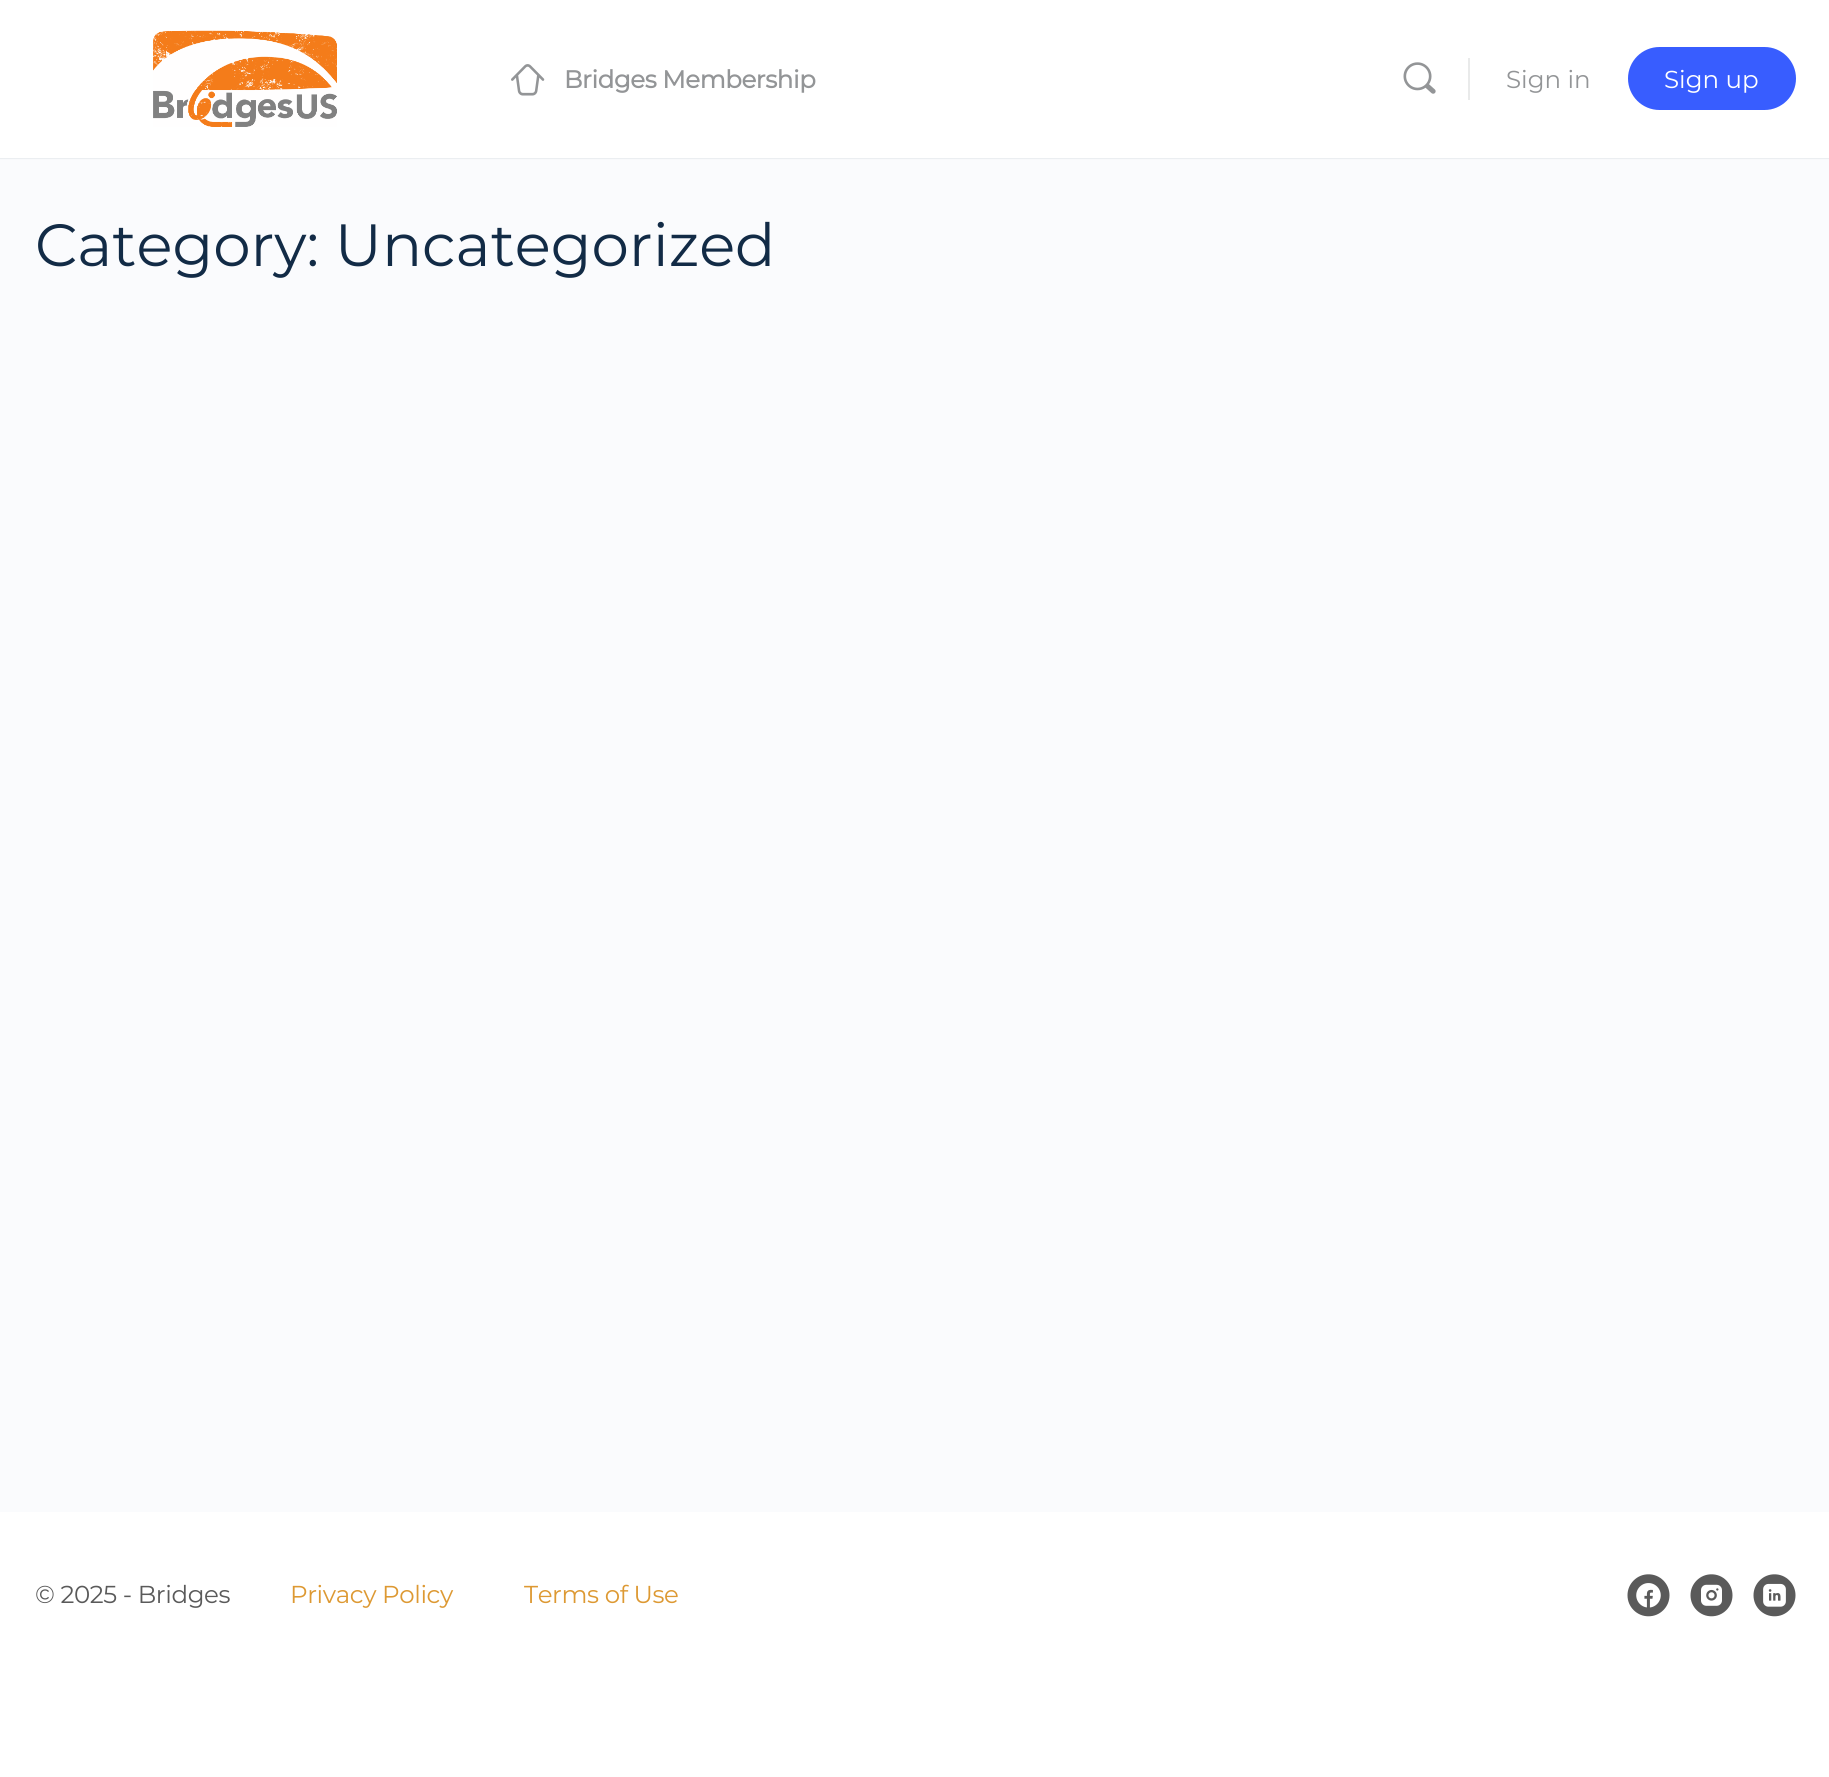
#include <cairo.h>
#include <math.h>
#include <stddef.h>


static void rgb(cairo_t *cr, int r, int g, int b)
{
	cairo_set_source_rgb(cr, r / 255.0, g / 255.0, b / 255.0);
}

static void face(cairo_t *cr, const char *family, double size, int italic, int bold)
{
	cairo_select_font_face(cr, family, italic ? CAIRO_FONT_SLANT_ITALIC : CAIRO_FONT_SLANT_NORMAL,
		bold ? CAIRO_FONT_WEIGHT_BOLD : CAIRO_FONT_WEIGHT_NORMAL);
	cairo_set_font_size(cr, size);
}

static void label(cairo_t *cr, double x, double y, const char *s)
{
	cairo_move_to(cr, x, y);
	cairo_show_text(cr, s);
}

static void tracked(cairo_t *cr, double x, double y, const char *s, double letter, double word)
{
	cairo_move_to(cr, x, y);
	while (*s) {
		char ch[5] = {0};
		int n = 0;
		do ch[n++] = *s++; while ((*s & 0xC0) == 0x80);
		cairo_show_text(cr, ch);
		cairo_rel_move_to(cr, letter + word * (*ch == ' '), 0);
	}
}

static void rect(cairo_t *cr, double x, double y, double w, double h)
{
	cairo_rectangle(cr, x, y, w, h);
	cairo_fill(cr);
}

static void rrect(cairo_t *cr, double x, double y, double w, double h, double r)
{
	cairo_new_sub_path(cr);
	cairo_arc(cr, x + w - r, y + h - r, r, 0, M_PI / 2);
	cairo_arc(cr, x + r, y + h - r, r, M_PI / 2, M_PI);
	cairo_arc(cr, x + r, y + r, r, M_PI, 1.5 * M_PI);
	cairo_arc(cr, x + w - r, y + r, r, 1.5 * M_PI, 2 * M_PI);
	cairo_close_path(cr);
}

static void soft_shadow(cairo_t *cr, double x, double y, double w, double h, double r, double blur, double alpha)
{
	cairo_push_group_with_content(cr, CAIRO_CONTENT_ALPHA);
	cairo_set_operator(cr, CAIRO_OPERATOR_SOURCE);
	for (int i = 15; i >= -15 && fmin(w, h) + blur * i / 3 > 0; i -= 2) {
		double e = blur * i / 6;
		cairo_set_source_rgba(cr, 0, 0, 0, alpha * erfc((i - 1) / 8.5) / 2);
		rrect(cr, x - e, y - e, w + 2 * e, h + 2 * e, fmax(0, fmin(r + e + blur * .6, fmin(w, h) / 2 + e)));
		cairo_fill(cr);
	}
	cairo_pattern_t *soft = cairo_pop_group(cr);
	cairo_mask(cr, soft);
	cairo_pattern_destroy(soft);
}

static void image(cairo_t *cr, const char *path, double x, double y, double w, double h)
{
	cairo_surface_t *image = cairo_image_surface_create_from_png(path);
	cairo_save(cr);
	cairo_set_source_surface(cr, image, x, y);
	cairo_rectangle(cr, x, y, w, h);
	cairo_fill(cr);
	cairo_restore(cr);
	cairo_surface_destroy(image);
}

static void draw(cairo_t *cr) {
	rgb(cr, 250, 251, 253);
	cairo_paint(cr);
	rgb(cr, 65, 71, 108);
	soft_shadow(cr, 0, 0, 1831, 158, 0, 1, 0.15);
	cairo_set_source_rgba(cr, 0.545, 0.553, 0.616, 0.05);
	cairo_new_path(cr);
	cairo_move_to(cr, 0, 158);
	cairo_line_to(cr, 0, 159);
	cairo_line_to(cr, 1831, 159);
	cairo_line_to(cr, 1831, 2);
	cairo_line_to(cr, 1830, 2);
	cairo_line_to(cr, 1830, 158);
	cairo_close_path(cr);
	cairo_fill(cr);
	rgb(cr, 255, 255, 255);
	rect(cr, 0, 0, 1829, 158);
	image(cr, "image0.png", 153, 30, 184, 97);
	image(cr, "image1.png", 511, 64, 34, 32);
	face(cr, "Montserrat", 24.5, 0, 1);
	rgb(cr, 147, 149, 151);
	tracked(cr, 564, 88, "Bridges Membership", -0.4, 0);
	image(cr, "image2.png", 1403, 62, 33, 32);
	rgb(cr, 233, 234, 234);
	rect(cr, 1468, 58, 2, 42);
	face(cr, "Montserrat Thin", 24.5, 0, 0);
	rgb(cr, 147, 149, 151);
	label(cr, 1506, 88, "Sign in");
	rgb(cr, 56, 93, 255);
	rrect(cr, 1629, 48, 166, 61, 30.5);
	cairo_fill_preserve(cr);
	cairo_stroke(cr);
	rgb(cr, 255, 255, 255);
	label(cr, 1664, 88, "Sign up");
	face(cr, "Montserrat Thin", 59.5, 0, 0);
	rgb(cr, 18, 43, 70);
	label(cr, 35, 266, "Category: Uncategorized");
	rgb(cr, 255, 255, 255);
	rect(cr, 0, 1512, 1829, 265);
	face(cr, "Montserrat Thin", 24.5, 0, 0);
	rgb(cr, 90, 90, 90);
	tracked(cr, 35, 1603, "© 2025 - Bridges", -0.4, 0);
	rgb(cr, 221, 153, 51);
	tracked(cr, 290, 1603, "Privacy Policy", -0.4, 0);
	tracked(cr, 524, 1603, "Terms of Use", -0.4, 0);
	image(cr, "image3.png", 1627, 1574, 43, 43);
	image(cr, "image4.png", 1690, 1574, 43, 43);
	image(cr, "image5.png", 1753, 1574, 43, 43);
}

int main(void) {
	cairo_surface_t *surface = cairo_image_surface_create(CAIRO_FORMAT_RGB24, 1829, 1777);
	cairo_t *cr = cairo_create(surface);
	cairo_font_options_t *options = cairo_font_options_create();
	cairo_font_options_set_hint_metrics(options, CAIRO_HINT_METRICS_OFF);
	cairo_font_options_set_hint_style(options, CAIRO_HINT_STYLE_NONE);
	cairo_set_font_options(cr, options);
	cairo_set_miter_limit(cr, 4);
	draw(cr);
	cairo_surface_write_to_png(surface, "render.png");
	cairo_font_options_destroy(options);
	cairo_destroy(cr);
	cairo_surface_destroy(surface);
	return 0;
}
